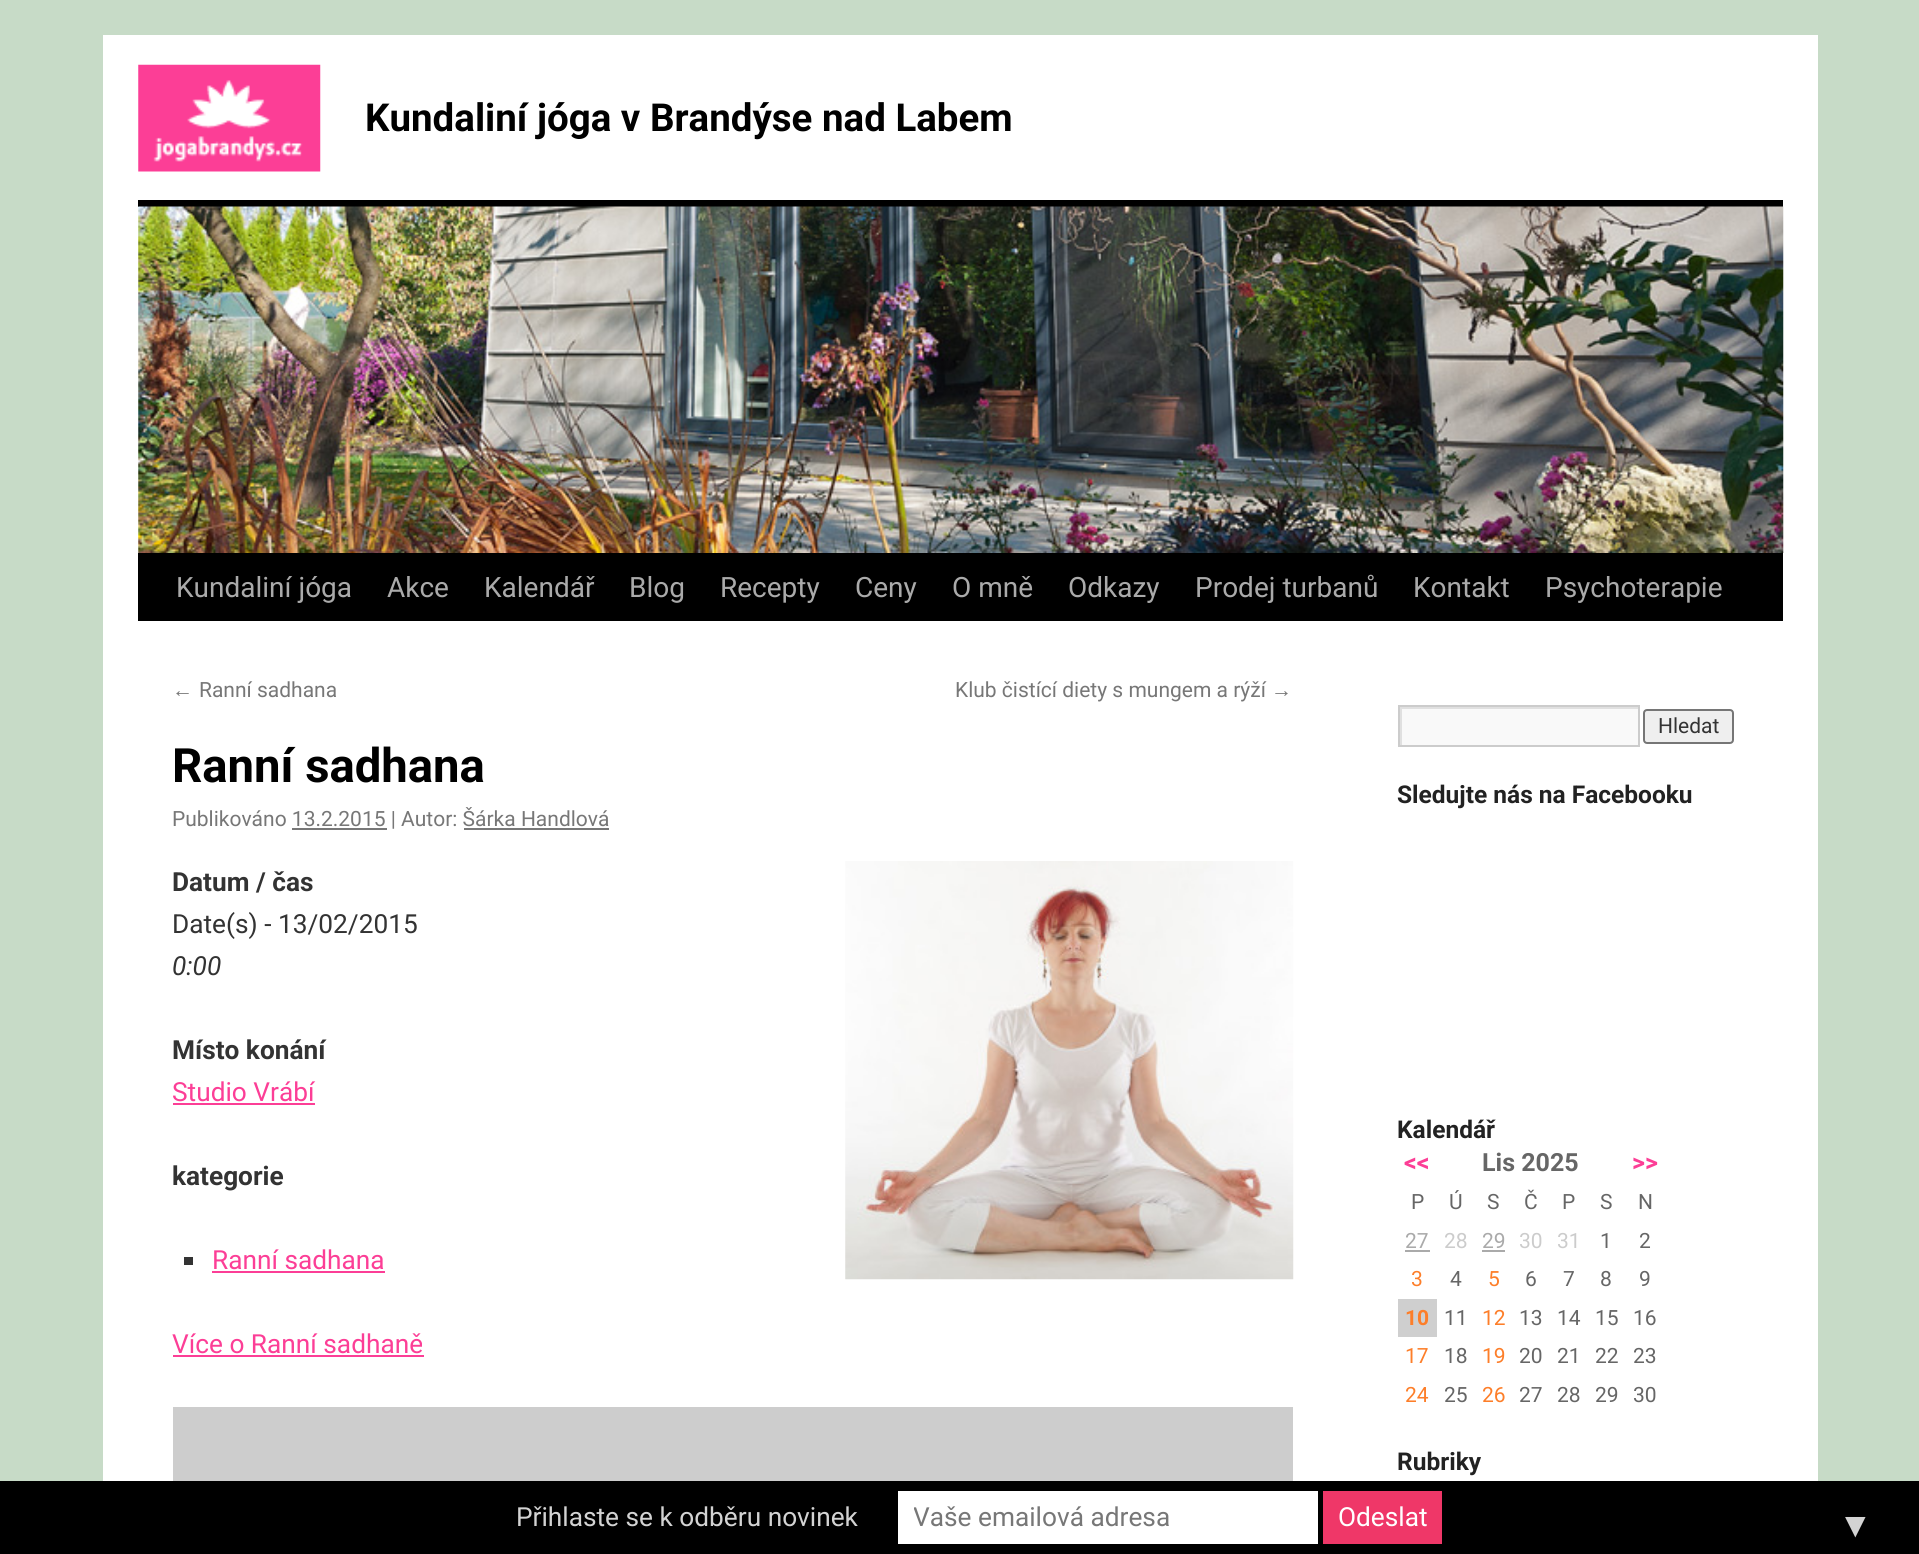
#include <cairo.h>
#include <math.h>
#include <stddef.h>


static void rgb(cairo_t *cr, int r, int g, int b)
{
	cairo_set_source_rgb(cr, r / 255.0, g / 255.0, b / 255.0);
}

static void face(cairo_t *cr, const char *family, double size, int italic, int bold)
{
	cairo_select_font_face(cr, family, italic ? CAIRO_FONT_SLANT_ITALIC : CAIRO_FONT_SLANT_NORMAL,
		bold ? CAIRO_FONT_WEIGHT_BOLD : CAIRO_FONT_WEIGHT_NORMAL);
	cairo_set_font_size(cr, size);
}

static void label(cairo_t *cr, double x, double y, const char *s)
{
	cairo_move_to(cr, x, y);
	cairo_show_text(cr, s);
}

static void rect(cairo_t *cr, double x, double y, double w, double h)
{
	cairo_rectangle(cr, x, y, w, h);
	cairo_fill(cr);
}

static void rrect(cairo_t *cr, double x, double y, double w, double h, double r)
{
	cairo_new_sub_path(cr);
	cairo_arc(cr, x + w - r, y + h - r, r, 0, M_PI / 2);
	cairo_arc(cr, x + r, y + h - r, r, M_PI / 2, M_PI);
	cairo_arc(cr, x + r, y + r, r, M_PI, 1.5 * M_PI);
	cairo_arc(cr, x + w - r, y + r, r, 1.5 * M_PI, 2 * M_PI);
	cairo_close_path(cr);
}

static void image(cairo_t *cr, const char *path, double x, double y, double w, double h)
{
	cairo_surface_t *image = cairo_image_surface_create_from_png(path);
	cairo_save(cr);
	cairo_set_source_surface(cr, image, x, y);
	cairo_rectangle(cr, x, y, w, h);
	cairo_fill(cr);
	cairo_restore(cr);
	cairo_surface_destroy(image);
}

static void draw(cairo_t *cr) {
	rgb(cr, 199, 219, 199);
	cairo_paint(cr);
	rgb(cr, 255, 255, 255);
	rect(cr, 103, 35, 1715, 1446);
	image(cr, "image0.png", 138, 64, 183, 108);
	face(cr, "Roboto", 38.5, 0, 1);
	rgb(cr, 0, 0, 0);
	label(cr, 365, 131, "Kundaliní jóga v Brandýse nad Labem");
	rect(cr, 138, 200, 1645, 7);
	rect(cr, 138, 553, 1645, 68);
	image(cr, "image1.png", 138, 206, 1646, 347);
	face(cr, "Roboto", 28, 0, 0);
	rgb(cr, 170, 170, 170);
	label(cr, 176, 597, "Kundaliní jóga");
	label(cr, 387, 597, "Akce");
	label(cr, 484, 597, "Kalendář");
	label(cr, 629, 597, "Blog");
	label(cr, 720, 597, "Recepty");
	label(cr, 855, 597, "Ceny");
	label(cr, 952, 597, "O mně");
	label(cr, 1068, 597, "Odkazy");
	label(cr, 1195, 597, "Prodej turbanů");
	label(cr, 1413, 597, "Kontakt");
	label(cr, 1545, 597, "Psychoterapie");
	face(cr, "Liberation Sans", 21, 0, 0);
	rgb(cr, 119, 119, 119);
	label(cr, 172, 697, "←");
	face(cr, "Roboto", 21, 0, 0);
	label(cr, 199, 697, "Ranní sadhana");
	label(cr, 955, 697, "Klub čistící diety s mungem a rýží");
	face(cr, "Liberation Sans", 21, 0, 0);
	label(cr, 1271, 697, "→");
	face(cr, "Roboto", 47.25, 0, 1);
	rgb(cr, 0, 0, 0);
	label(cr, 172, 782, "Ranní sadhana");
	face(cr, "Roboto", 21, 0, 0);
	rgb(cr, 119, 119, 119);
	label(cr, 172, 826, "Publikováno 13.2.2015 | Autor: Šárka Handlová");
	rect(cr, 292, 828, 95, 2);
	rect(cr, 464, 828, 145, 2);
	face(cr, "Roboto", 26.25, 0, 1);
	rgb(cr, 51, 51, 51);
	label(cr, 172, 891, "Datum / čas");
	face(cr, "Roboto", 26.25, 0, 0);
	label(cr, 172, 933, "Date(s) - 13/02/2015");
	face(cr, "Roboto", 26.25, 1, 0);
	label(cr, 172, 975, "0:00");
	image(cr, "image2.png", 845, 861, 449, 419);
	face(cr, "Roboto", 26.25, 0, 1);
	label(cr, 172, 1059, "Místo konání");
	face(cr, "Roboto", 26.25, 0, 0);
	rgb(cr, 252, 62, 150);
	label(cr, 172, 1101, "Studio Vrábí");
	rect(cr, 173, 1103, 142, 2);
	face(cr, "Roboto", 26.25, 0, 1);
	rgb(cr, 51, 51, 51);
	label(cr, 172, 1185, "kategorie");
	rect(cr, 184, 1257, 9, 8);
	face(cr, "Roboto", 26.25, 0, 0);
	rgb(cr, 252, 62, 150);
	label(cr, 212, 1269, "Ranní sadhana");
	rect(cr, 212, 1271, 173, 2);
	label(cr, 172, 1353, "Více o Ranní sadhaně");
	rect(cr, 173, 1355, 251, 2);
	rgb(cr, 205, 205, 205);
	rect(cr, 173, 1407, 1120, 74);
	rgb(cr, 249, 249, 249);
	rect(cr, 1402, 709, 236, 36);
	cairo_save(cr);
	cairo_rectangle(cr, 1400, 707, 238, 39);
	cairo_clip(cr);
	rgb(cr, 224, 224, 224);
	cairo_set_fill_rule(cr, CAIRO_FILL_RULE_EVEN_ODD);
	cairo_new_path(cr);
	cairo_move_to(cr, 1227, 534);
	cairo_line_to(cr, 1811, 534);
	cairo_line_to(cr, 1811, 919);
	cairo_line_to(cr, 1227, 919);
	cairo_close_path(cr);
	cairo_move_to(cr, 1402, 709);
	cairo_line_to(cr, 1640, 709);
	cairo_line_to(cr, 1640, 747);
	cairo_line_to(cr, 1402, 747);
	cairo_close_path(cr);
	cairo_fill(cr);
	cairo_restore(cr);
	cairo_rectangle(cr, 1399, 706, 240, 40);
	rgb(cr, 204, 204, 204);
	cairo_stroke(cr);
	rgb(cr, 239, 239, 239);
	rrect(cr, 1644, 710, 89, 33, 3);
	cairo_fill_preserve(cr);
	rgb(cr, 118, 118, 118);
	cairo_stroke(cr);
	face(cr, "Roboto", 21, 0, 0);
	rgb(cr, 51, 51, 51);
	label(cr, 1658, 733, "Hledat");
	face(cr, "Roboto", 24.5, 0, 1);
	rgb(cr, 34, 34, 34);
	label(cr, 1397, 803, "Sledujte nás na Facebooku");
	label(cr, 1397, 1138, "Kalendář");
	face(cr, "Roboto", 25, 0, 1);
	rgb(cr, 252, 62, 150);
	label(cr, 1404, 1171, "<<");
	rgb(cr, 102, 102, 102);
	label(cr, 1482, 1171, "Lis 2025");
	rgb(cr, 252, 62, 150);
	label(cr, 1632, 1171, ">>");
	face(cr, "Roboto", 21, 0, 0);
	rgb(cr, 102, 102, 102);
	label(cr, 1411, 1209, "P");
	label(cr, 1449, 1209, "Ú");
	label(cr, 1487, 1209, "S");
	label(cr, 1524, 1209, "Č");
	label(cr, 1562, 1209, "P");
	label(cr, 1600, 1209, "S");
	label(cr, 1638, 1209, "N");
	rgb(cr, 170, 170, 170);
	label(cr, 1405, 1248, "27");
	rect(cr, 1405, 1250, 25, 2);
	rgb(cr, 204, 204, 204);
	label(cr, 1444, 1248, "28");
	rgb(cr, 170, 170, 170);
	label(cr, 1482, 1248, "29");
	rect(cr, 1482, 1250, 23, 2);
	rgb(cr, 204, 204, 204);
	label(cr, 1519, 1248, "30");
	label(cr, 1557, 1248, "31");
	rgb(cr, 102, 102, 102);
	label(cr, 1600, 1248, "1");
	label(cr, 1639, 1248, "2");
	rgb(cr, 253, 126, 41);
	label(cr, 1411, 1286, "3");
	rgb(cr, 102, 102, 102);
	label(cr, 1450, 1286, "4");
	rgb(cr, 253, 126, 41);
	label(cr, 1488, 1286, "5");
	rgb(cr, 102, 102, 102);
	label(cr, 1525, 1286, "6");
	label(cr, 1563, 1286, "7");
	label(cr, 1600, 1286, "8");
	label(cr, 1639, 1286, "9");
	rgb(cr, 207, 207, 207);
	rect(cr, 1398, 1299, 39, 38);
	face(cr, "Roboto", 21, 0, 1);
	rgb(cr, 253, 126, 41);
	label(cr, 1405, 1325, "10");
	face(cr, "Roboto", 21, 0, 0);
	rgb(cr, 102, 102, 102);
	label(cr, 1444, 1325, "11");
	rgb(cr, 253, 126, 41);
	label(cr, 1482, 1325, "12");
	rgb(cr, 102, 102, 102);
	label(cr, 1519, 1325, "13");
	label(cr, 1557, 1325, "14");
	label(cr, 1595, 1325, "15");
	label(cr, 1633, 1325, "16");
	rgb(cr, 253, 126, 41);
	label(cr, 1405, 1363, "17");
	rgb(cr, 102, 102, 102);
	label(cr, 1444, 1363, "18");
	rgb(cr, 253, 126, 41);
	label(cr, 1482, 1363, "19");
	rgb(cr, 102, 102, 102);
	label(cr, 1519, 1363, "20");
	label(cr, 1557, 1363, "21");
	label(cr, 1595, 1363, "22");
	label(cr, 1633, 1363, "23");
	rgb(cr, 253, 126, 41);
	label(cr, 1405, 1402, "24");
	rgb(cr, 102, 102, 102);
	label(cr, 1444, 1402, "25");
	rgb(cr, 253, 126, 41);
	label(cr, 1482, 1402, "26");
	rgb(cr, 102, 102, 102);
	label(cr, 1519, 1402, "27");
	label(cr, 1557, 1402, "28");
	label(cr, 1595, 1402, "29");
	label(cr, 1633, 1402, "30");
	face(cr, "Roboto", 24.5, 0, 1);
	rgb(cr, 34, 34, 34);
	label(cr, 1397, 1470, "Rubriky");
	rgb(cr, 0, 0, 0);
	rect(cr, 0, 1481, 1919, 73);
	face(cr, "Roboto", 26.25, 0, 0);
	rgb(cr, 211, 211, 211);
	label(cr, 516, 1526, "Přihlaste se k odběru novinek");
	rgb(cr, 255, 255, 255);
	rect(cr, 898, 1491, 420, 53);
	cairo_save(cr);
	cairo_rectangle(cr, 914, 1502, 390, 31);
	cairo_clip(cr);
	rgb(cr, 119, 119, 119);
	label(cr, 913, 1526, "Vaše emailová adresa");
	cairo_restore(cr);
	rgb(cr, 239, 55, 104);
	rect(cr, 1323, 1491, 119, 53);
	rgb(cr, 255, 255, 255);
	label(cr, 1338, 1526, "Odeslat");
	face(cr, "Liberation Sans", 35, 0, 0);
	rgb(cr, 211, 211, 211);
	label(cr, 1838, 1537, "▼");
}

int main(void) {
	cairo_surface_t *surface = cairo_image_surface_create(CAIRO_FORMAT_RGB24, 1919, 1554);
	cairo_t *cr = cairo_create(surface);
	cairo_font_options_t *options = cairo_font_options_create();
	cairo_font_options_set_hint_metrics(options, CAIRO_HINT_METRICS_OFF);
	cairo_font_options_set_hint_style(options, CAIRO_HINT_STYLE_NONE);
	cairo_set_font_options(cr, options);
	cairo_set_miter_limit(cr, 4);
	draw(cr);
	cairo_surface_write_to_png(surface, "render.png");
	cairo_font_options_destroy(options);
	cairo_destroy(cr);
	cairo_surface_destroy(surface);
	return 0;
}
